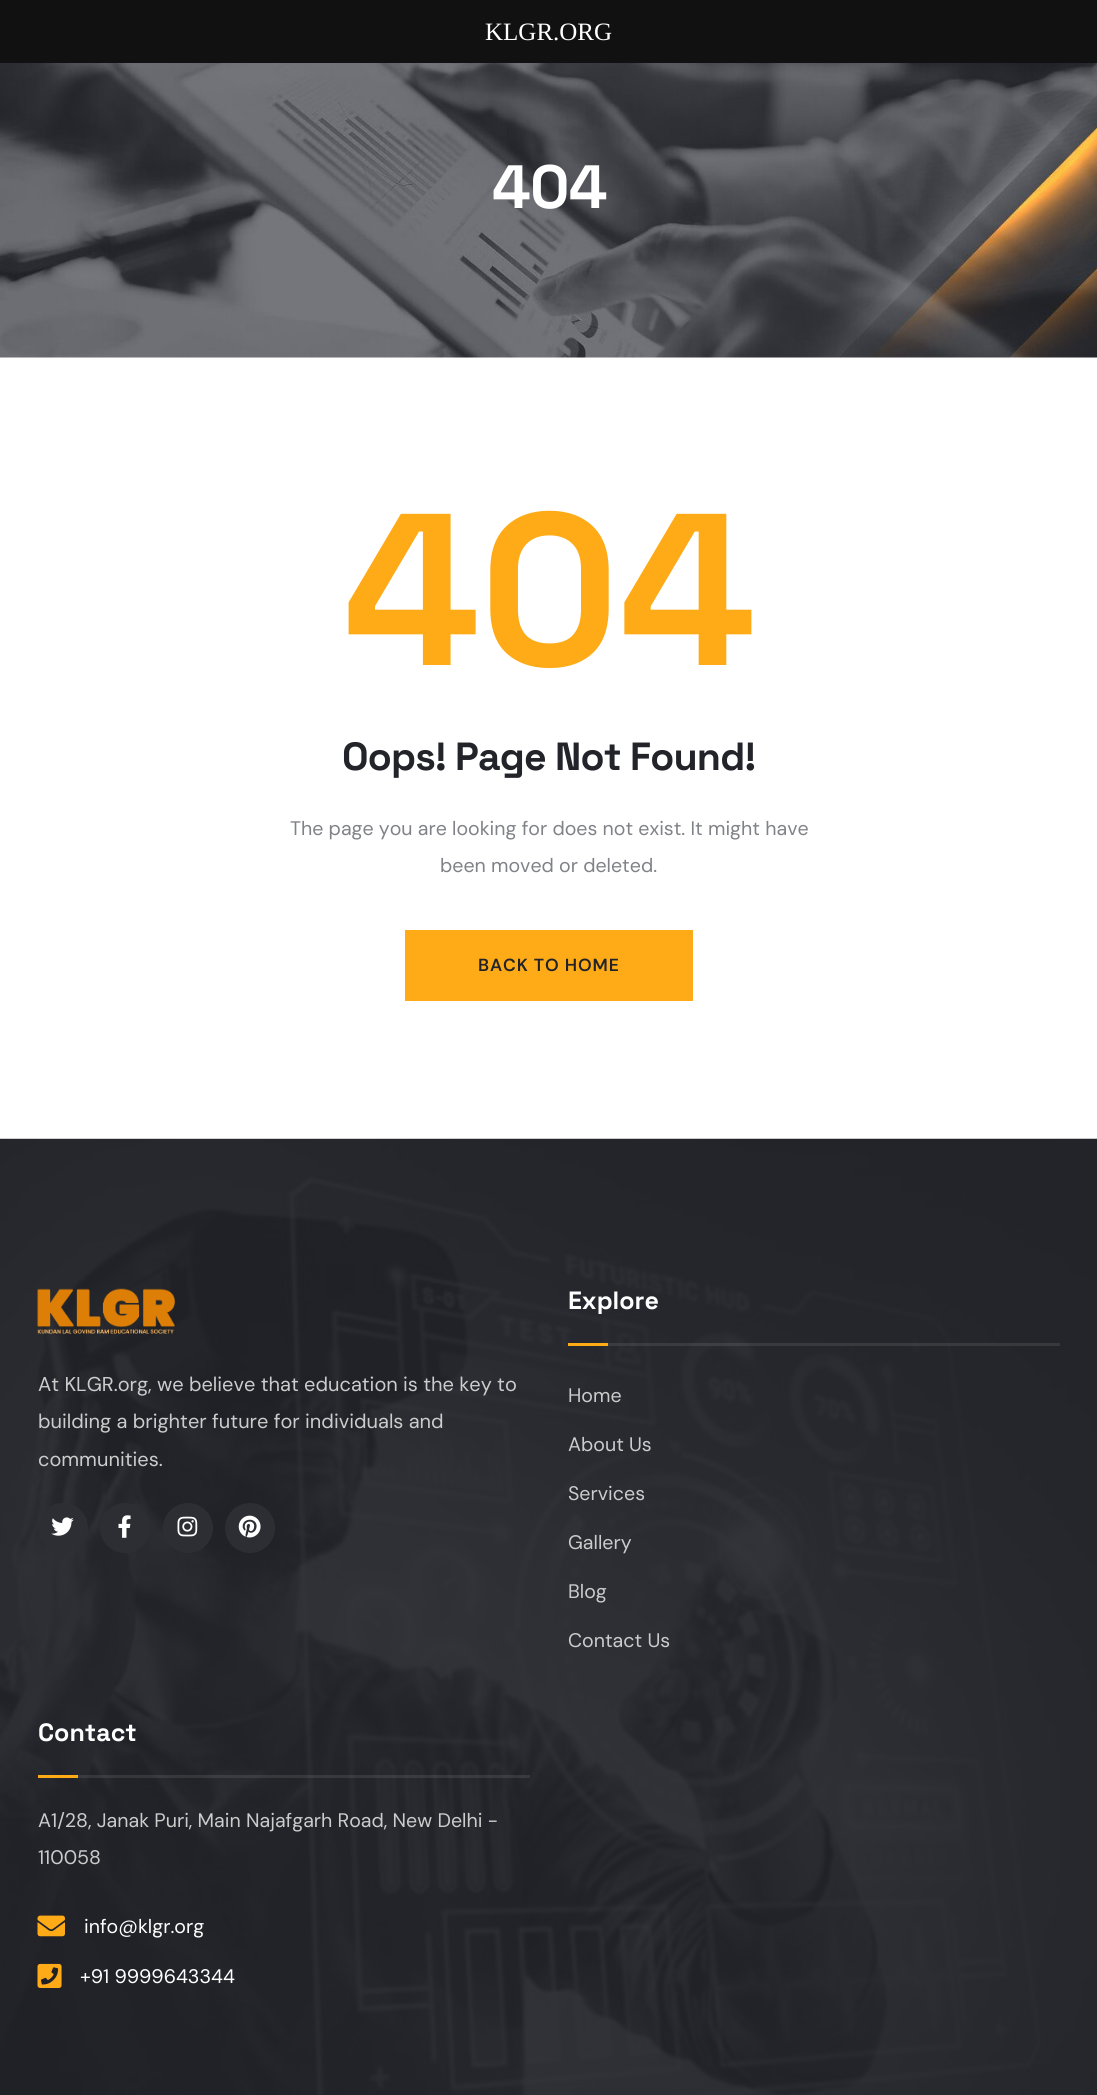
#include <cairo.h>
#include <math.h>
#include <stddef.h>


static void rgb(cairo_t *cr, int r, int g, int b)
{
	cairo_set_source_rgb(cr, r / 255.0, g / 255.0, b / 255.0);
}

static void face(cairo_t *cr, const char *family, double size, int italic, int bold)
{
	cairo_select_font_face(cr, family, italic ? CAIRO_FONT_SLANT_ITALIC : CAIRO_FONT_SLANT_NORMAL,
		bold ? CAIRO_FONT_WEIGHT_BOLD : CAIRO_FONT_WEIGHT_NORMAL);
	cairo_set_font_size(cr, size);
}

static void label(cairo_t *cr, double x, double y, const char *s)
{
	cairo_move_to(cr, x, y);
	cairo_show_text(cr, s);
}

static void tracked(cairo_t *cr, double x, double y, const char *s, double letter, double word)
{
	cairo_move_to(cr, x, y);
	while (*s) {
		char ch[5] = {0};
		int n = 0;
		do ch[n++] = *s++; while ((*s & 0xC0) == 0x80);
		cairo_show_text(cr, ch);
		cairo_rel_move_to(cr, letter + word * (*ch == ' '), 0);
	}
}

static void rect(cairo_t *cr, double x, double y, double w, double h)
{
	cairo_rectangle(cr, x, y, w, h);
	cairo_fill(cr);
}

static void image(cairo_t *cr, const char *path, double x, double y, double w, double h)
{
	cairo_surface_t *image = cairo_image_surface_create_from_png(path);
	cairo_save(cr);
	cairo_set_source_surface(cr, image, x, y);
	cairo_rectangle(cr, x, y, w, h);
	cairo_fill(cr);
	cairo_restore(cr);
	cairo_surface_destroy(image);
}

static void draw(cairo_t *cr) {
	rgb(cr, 255, 255, 255);
	cairo_paint(cr);
	rgb(cr, 17, 17, 17);
	rect(cr, 0, 0, 1097, 63);
	face(cr, "Liberation Serif", 25, 0, 0);
	rgb(cr, 255, 255, 255);
	label(cr, 485, 40, "KLGR.ORG");
	image(cr, "image0.png", 0, 63, 1097, 295);
	face(cr, "Space Grotesk", 61, 0, 1);
	tracked(cr, 492, 208, "404", -0.8, 0);
	face(cr, "Space Grotesk", 216, 0, 1);
	rgb(cr, 255, 170, 23);
	tracked(cr, 343, 665, "404", -0.8, 0);
	face(cr, "Space Grotesk", 39.25, 0, 1);
	rgb(cr, 34, 36, 41);
	tracked(cr, 342, 770, "Oops! Page Not Found!", -0.8, 0);
	face(cr, "DM Sans", 19.6, 0, 0);
	rgb(cr, 128, 130, 135);
	label(cr, 290, 835, "The page you are looking for does not exist. It might have");
	label(cr, 440, 872, "been moved or deleted.");
	rgb(cr, 255, 170, 23);
	rect(cr, 405, 930, 288, 71);
	face(cr, "DM Sans SemiBold", 17.5, 0, 0);
	rgb(cr, 34, 36, 41);
	tracked(cr, 478, 971, "BACK TO HOME", 0.9, 0);
	image(cr, "image1.png", 0, 1138, 1097, 957);
	image(cr, "image2.png", 37, 1288, 138, 46);
	face(cr, "DM Sans", 20, 0, 0);
	rgb(cr, 204, 204, 204);
	label(cr, 38, 1391, "At KLGR.org, we believe that education is the key to");
	label(cr, 38, 1428, "building a brighter future for individuals and");
	label(cr, 38, 1466, "communities.");
	rgb(cr, 44, 46, 51);
	cairo_new_path(cr);
	cairo_arc(cr, 63, 1528, 25, 0, 2 * M_PI);
	cairo_fill(cr);
	image(cr, "image3.png", 51, 1517, 23, 19);
	cairo_arc(cr, 125, 1528, 25, 0, 2 * M_PI);
	cairo_fill(cr);
	image(cr, "image4.png", 118, 1515, 13, 23);
	cairo_arc(cr, 188, 1528, 25, 0, 2 * M_PI);
	cairo_fill(cr);
	image(cr, "image5.png", 177, 1516, 21, 21);
	cairo_arc(cr, 250, 1528, 25, 0, 2 * M_PI);
	cairo_fill(cr);
	image(cr, "image6.png", 238, 1515, 23, 23);
	face(cr, "Space Grotesk", 25, 0, 1);
	rgb(cr, 255, 255, 255);
	label(cr, 568, 1309, "Explore");
	rgb(cr, 255, 170, 23);
	rect(cr, 568, 1343, 40, 3);
	cairo_set_source_rgba(cr, 1, 1, 1, 0.09);
	rect(cr, 608, 1343, 452, 3);
	face(cr, "DM Sans", 19.6, 0, 0);
	rgb(cr, 204, 204, 204);
	label(cr, 568, 1402, "Home");
	label(cr, 568, 1451, "About Us");
	label(cr, 568, 1500, "Services");
	label(cr, 568, 1549, "Gallery");
	label(cr, 568, 1598, "Blog");
	label(cr, 568, 1647, "Contact Us");
	face(cr, "Space Grotesk", 25, 0, 1);
	rgb(cr, 255, 255, 255);
	label(cr, 38, 1741, "Contact");
	rgb(cr, 255, 170, 23);
	rect(cr, 38, 1775, 40, 3);
	cairo_set_source_rgba(cr, 1, 1, 1, 0.09);
	rect(cr, 78, 1775, 452, 3);
	face(cr, "DM Sans", 19.6, 0, 0);
	rgb(cr, 204, 204, 204);
	label(cr, 38, 1827, "A1/28, Janak Puri, Main Najafgarh Road, New Delhi -");
	label(cr, 38, 1864, "110058");
	image(cr, "image7.png", 37, 1915, 28, 22);
	rgb(cr, 255, 255, 255);
	label(cr, 84, 1933, "info@klgr.org");
	image(cr, "image8.png", 37, 1963, 25, 25);
	label(cr, 80, 1983, "+91 9999643344");
}

int main(void) {
	cairo_surface_t *surface = cairo_image_surface_create(CAIRO_FORMAT_RGB24, 1097, 2095);
	cairo_t *cr = cairo_create(surface);
	cairo_font_options_t *options = cairo_font_options_create();
	cairo_font_options_set_hint_metrics(options, CAIRO_HINT_METRICS_OFF);
	cairo_font_options_set_hint_style(options, CAIRO_HINT_STYLE_NONE);
	cairo_set_font_options(cr, options);
	cairo_set_miter_limit(cr, 4);
	draw(cr);
	cairo_surface_write_to_png(surface, "render.png");
	cairo_font_options_destroy(options);
	cairo_destroy(cr);
	cairo_surface_destroy(surface);
	return 0;
}
